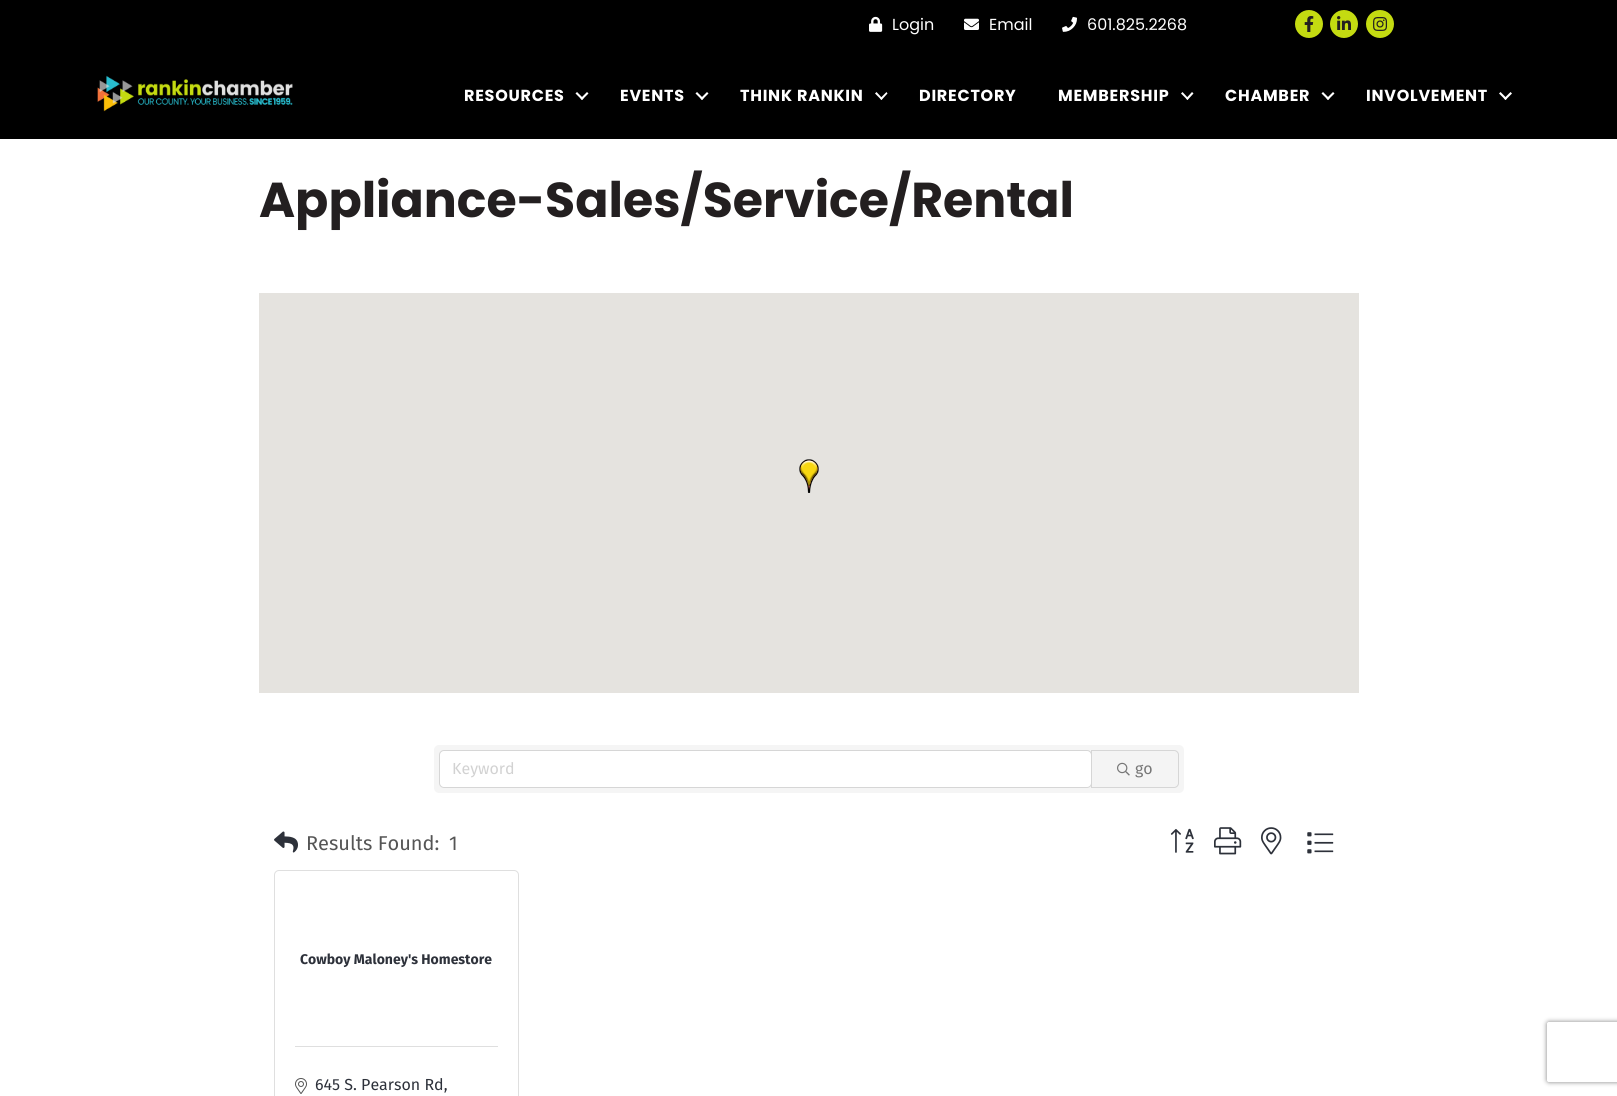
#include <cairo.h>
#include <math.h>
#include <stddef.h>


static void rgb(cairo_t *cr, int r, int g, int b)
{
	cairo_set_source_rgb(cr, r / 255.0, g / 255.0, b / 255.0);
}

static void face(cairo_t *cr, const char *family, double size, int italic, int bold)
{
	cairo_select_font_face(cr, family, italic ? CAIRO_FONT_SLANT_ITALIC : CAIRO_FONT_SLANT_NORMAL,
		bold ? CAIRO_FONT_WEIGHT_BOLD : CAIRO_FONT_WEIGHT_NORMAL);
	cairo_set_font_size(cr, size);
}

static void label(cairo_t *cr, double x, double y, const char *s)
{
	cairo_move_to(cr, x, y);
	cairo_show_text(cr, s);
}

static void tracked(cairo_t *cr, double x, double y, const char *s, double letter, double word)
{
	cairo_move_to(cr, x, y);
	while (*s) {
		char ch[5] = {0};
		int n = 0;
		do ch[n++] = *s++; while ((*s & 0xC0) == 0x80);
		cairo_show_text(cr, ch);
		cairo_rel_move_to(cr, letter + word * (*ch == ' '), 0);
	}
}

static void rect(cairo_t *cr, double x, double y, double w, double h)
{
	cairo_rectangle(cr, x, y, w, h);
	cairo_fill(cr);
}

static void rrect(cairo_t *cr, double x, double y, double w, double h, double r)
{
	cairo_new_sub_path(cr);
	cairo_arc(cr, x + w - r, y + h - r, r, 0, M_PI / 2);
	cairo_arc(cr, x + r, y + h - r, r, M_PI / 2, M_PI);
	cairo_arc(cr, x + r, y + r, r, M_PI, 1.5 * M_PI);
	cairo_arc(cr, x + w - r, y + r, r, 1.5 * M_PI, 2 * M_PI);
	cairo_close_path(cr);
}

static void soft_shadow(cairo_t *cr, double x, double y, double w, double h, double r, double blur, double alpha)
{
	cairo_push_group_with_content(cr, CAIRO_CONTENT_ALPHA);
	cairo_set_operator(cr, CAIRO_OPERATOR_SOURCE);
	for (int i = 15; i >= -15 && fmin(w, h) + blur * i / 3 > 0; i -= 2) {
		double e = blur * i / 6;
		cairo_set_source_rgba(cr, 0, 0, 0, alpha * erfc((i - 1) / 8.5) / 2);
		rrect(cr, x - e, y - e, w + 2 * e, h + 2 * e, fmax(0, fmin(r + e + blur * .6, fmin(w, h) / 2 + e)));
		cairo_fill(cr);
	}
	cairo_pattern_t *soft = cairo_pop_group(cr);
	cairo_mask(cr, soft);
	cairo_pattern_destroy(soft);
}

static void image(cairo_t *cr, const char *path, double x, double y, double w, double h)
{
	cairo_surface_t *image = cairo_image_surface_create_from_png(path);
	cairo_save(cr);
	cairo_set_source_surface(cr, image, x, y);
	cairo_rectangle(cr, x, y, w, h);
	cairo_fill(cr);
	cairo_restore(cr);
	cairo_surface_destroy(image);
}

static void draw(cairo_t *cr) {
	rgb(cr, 0, 0, 0);
	cairo_paint(cr);
	image(cr, "image0.png", 869, 16, 14, 16);
	face(cr, "Poppins", 16, 0, 0);
	rgb(cr, 255, 255, 255);
	label(cr, 892, 30, "Login");
	image(cr, "image1.png", 964, 18, 15, 12);
	label(cr, 989, 30, "Email");
	image(cr, "image2.png", 1062, 16, 15, 16);
	label(cr, 1087, 30, "601.825.2268");
	rgb(cr, 196, 219, 17);
	cairo_new_path(cr);
	cairo_arc(cr, 1309, 24, 14, 0, 2 * M_PI);
	cairo_fill(cr);
	image(cr, "image3.png", 1304, 16, 10, 16);
	cairo_arc(cr, 1344, 24, 14, 0, 2 * M_PI);
	cairo_fill(cr);
	image(cr, "image4.png", 1337, 16, 14, 14);
	cairo_arc(cr, 1380, 24, 14, 0, 2 * M_PI);
	cairo_fill(cr);
	image(cr, "image5.png", 1373, 17, 15, 14);
	image(cr, "image6.png", 97, 75, 196, 37);
	face(cr, "Poppins", 16, 0, 1);
	rgb(cr, 255, 255, 255);
	tracked(cr, 464, 101, "RESOURCES", 0.75, 0);
	cairo_new_path(cr);
	cairo_move_to(cr, 587, 92);
	cairo_line_to(cr, 588.5, 93.5);
	cairo_line_to(cr, 582, 100);
	cairo_line_to(cr, 580.5, 98.5);
	cairo_close_path(cr);
	cairo_fill(cr);
	cairo_new_path(cr);
	cairo_move_to(cr, 577, 92);
	cairo_line_to(cr, 583.5, 98.5);
	cairo_line_to(cr, 582, 100);
	cairo_line_to(cr, 575.5, 93.5);
	cairo_close_path(cr);
	cairo_fill(cr);
	tracked(cr, 620, 101, "EVENTS", 0.75, 0);
	cairo_new_path(cr);
	cairo_move_to(cr, 707, 92);
	cairo_line_to(cr, 708.5, 93.5);
	cairo_line_to(cr, 702, 100);
	cairo_line_to(cr, 700.5, 98.5);
	cairo_close_path(cr);
	cairo_fill(cr);
	cairo_new_path(cr);
	cairo_move_to(cr, 697, 92);
	cairo_line_to(cr, 703.5, 98.5);
	cairo_line_to(cr, 702, 100);
	cairo_line_to(cr, 695.5, 93.5);
	cairo_close_path(cr);
	cairo_fill(cr);
	tracked(cr, 740, 101, "THINK RANKIN", 0.75, 0);
	cairo_new_path(cr);
	cairo_move_to(cr, 886.5, 92);
	cairo_line_to(cr, 887.5, 93.5);
	cairo_line_to(cr, 881.5, 100);
	cairo_line_to(cr, 880, 98.5);
	cairo_close_path(cr);
	cairo_fill(cr);
	cairo_new_path(cr);
	cairo_move_to(cr, 876.5, 92);
	cairo_line_to(cr, 882.5, 98.5);
	cairo_line_to(cr, 881.5, 100);
	cairo_line_to(cr, 875, 93.5);
	cairo_close_path(cr);
	cairo_fill(cr);
	tracked(cr, 919, 101, "DIRECTORY", 0.75, 0);
	tracked(cr, 1058, 101, "MEMBERSHIP", 0.75, 0);
	cairo_new_path(cr);
	cairo_move_to(cr, 1192, 92);
	cairo_line_to(cr, 1193.5, 93.5);
	cairo_line_to(cr, 1187.5, 100);
	cairo_line_to(cr, 1186, 98.5);
	cairo_close_path(cr);
	cairo_fill(cr);
	cairo_new_path(cr);
	cairo_move_to(cr, 1182.5, 92);
	cairo_line_to(cr, 1188.5, 98.5);
	cairo_line_to(cr, 1187.5, 100);
	cairo_line_to(cr, 1181, 93.5);
	cairo_close_path(cr);
	cairo_fill(cr);
	tracked(cr, 1225, 101, "CHAMBER", 0.75, 0);
	cairo_new_path(cr);
	cairo_move_to(cr, 1333, 92);
	cairo_line_to(cr, 1334.5, 93.5);
	cairo_line_to(cr, 1328, 100);
	cairo_line_to(cr, 1326.5, 98.5);
	cairo_close_path(cr);
	cairo_fill(cr);
	cairo_new_path(cr);
	cairo_move_to(cr, 1323, 92);
	cairo_line_to(cr, 1329.5, 98.5);
	cairo_line_to(cr, 1328, 100);
	cairo_line_to(cr, 1321.5, 93.5);
	cairo_close_path(cr);
	cairo_fill(cr);
	tracked(cr, 1366, 101, "INVOLVEMENT", 0.75, 0);
	cairo_new_path(cr);
	cairo_move_to(cr, 1510.5, 92);
	cairo_line_to(cr, 1512, 93.5);
	cairo_line_to(cr, 1505.5, 100);
	cairo_line_to(cr, 1504, 98.5);
	cairo_close_path(cr);
	cairo_fill(cr);
	cairo_new_path(cr);
	cairo_move_to(cr, 1500.5, 92);
	cairo_line_to(cr, 1507, 98.5);
	cairo_line_to(cr, 1505.5, 100);
	cairo_line_to(cr, 1499, 93.5);
	cairo_close_path(cr);
	cairo_fill(cr);
	rect(cr, 0, 139, 1617, 957);
	face(cr, "Poppins", 49, 0, 1);
	rgb(cr, 35, 31, 32);
	label(cr, 259, 217, "Appliance-Sales/Service/Rental");
	rgb(cr, 229, 227, 223);
	rect(cr, 259, 293, 1100, 400);
	image(cr, "image7.png", 799, 459, 20, 34);
	rgb(cr, 245, 245, 245);
	rrect(cr, 434, 745, 750, 48, 5);
	cairo_fill(cr);
	rgb(cr, 255, 255, 255);
	rrect(cr, 439.5, 750.5, 652, 37, 4.5);
	cairo_fill_preserve(cr);
	rgb(cr, 214, 214, 214);
	cairo_set_line_width(cr, 1);
	cairo_stroke(cr);
	face(cr, "Fira Sans", 16, 0, 0);
	rgb(cr, 210, 210, 210);
	label(cr, 452, 774, "Keyword");
	rgb(cr, 244, 244, 244);
	cairo_new_path(cr);
	cairo_move_to(cr, 1091.5, 750.5);
	cairo_line_to(cr, 1174, 750.5);
	cairo_curve_to(cr, 1176.5, 750.5, 1178.5, 752.5, 1178.5, 755);
	cairo_line_to(cr, 1178.5, 783);
	cairo_curve_to(cr, 1178.5, 785.5, 1176.5, 787.5, 1174, 787.5);
	cairo_line_to(cr, 1091.5, 787.5);
	cairo_close_path(cr);
	cairo_fill_preserve(cr);
	rgb(cr, 214, 214, 214);
	cairo_stroke(cr);
	image(cr, "image8.png", 1117, 762, 13, 14);
	rgb(cr, 119, 119, 119);
	label(cr, 1135, 774, "go");
	image(cr, "image9.png", 274, 831, 24, 22);
	face(cr, "Fira Sans", 20, 0, 0);
	rgb(cr, 85, 85, 85);
	label(cr, 306, 850, "Results Found:");
	label(cr, 449, 850, "1");
	image(cr, "image10.png", 1170, 828, 24, 25);
	image(cr, "image11.png", 1214, 827, 28, 28);
	image(cr, "image12.png", 1261, 827, 21, 28);
	image(cr, "image13.png", 1307, 832, 27, 22);
	rrect(cr, 274.5, 870.5, 244, 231, 4.5);
	rgb(cr, 223, 223, 223);
	cairo_stroke(cr);
	face(cr, "Fira Sans", 14, 0, 1);
	rgb(cr, 45, 49, 58);
	label(cr, 300, 964, "Cowboy Maloney's Homestore");
	rgb(cr, 223, 223, 223);
	rect(cr, 295, 1046, 203, 1);
	image(cr, "image14.png", 295, 1078, 12, 16);
	face(cr, "Fira Sans", 16, 0, 0);
	rgb(cr, 45, 49, 58);
	label(cr, 315, 1090, "645 S. Pearson Rd,");
	cairo_save(cr);
	cairo_set_fill_rule(cr, CAIRO_FILL_RULE_EVEN_ODD);
	cairo_new_path(cr);
	cairo_move_to(cr, 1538, 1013);
	cairo_line_to(cr, 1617, 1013);
	cairo_line_to(cr, 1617, 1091);
	cairo_line_to(cr, 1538, 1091);
	cairo_close_path(cr);
	cairo_move_to(cr, 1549, 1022);
	cairo_line_to(cr, 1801, 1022);
	cairo_curve_to(cr, 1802, 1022, 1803, 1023, 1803, 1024);
	cairo_line_to(cr, 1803, 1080);
	cairo_curve_to(cr, 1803, 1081, 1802, 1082, 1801, 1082);
	cairo_line_to(cr, 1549, 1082);
	cairo_curve_to(cr, 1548, 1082, 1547, 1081, 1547, 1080);
	cairo_line_to(cr, 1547, 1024);
	cairo_curve_to(cr, 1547, 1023, 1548, 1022, 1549, 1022);
	cairo_close_path(cr);
	cairo_clip(cr);
	rgb(cr, 128, 128, 128);
	soft_shadow(cr, 1547, 1022, 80, 60, 2, 2.5, 1);
	cairo_restore(cr);
}

int main(void) {
	cairo_surface_t *surface = cairo_image_surface_create(CAIRO_FORMAT_RGB24, 1617, 1096);
	cairo_t *cr = cairo_create(surface);
	cairo_font_options_t *options = cairo_font_options_create();
	cairo_font_options_set_hint_metrics(options, CAIRO_HINT_METRICS_OFF);
	cairo_font_options_set_hint_style(options, CAIRO_HINT_STYLE_NONE);
	cairo_set_font_options(cr, options);
	cairo_set_miter_limit(cr, 4);
	draw(cr);
	cairo_surface_write_to_png(surface, "render.png");
	cairo_font_options_destroy(options);
	cairo_destroy(cr);
	cairo_surface_destroy(surface);
	return 0;
}
